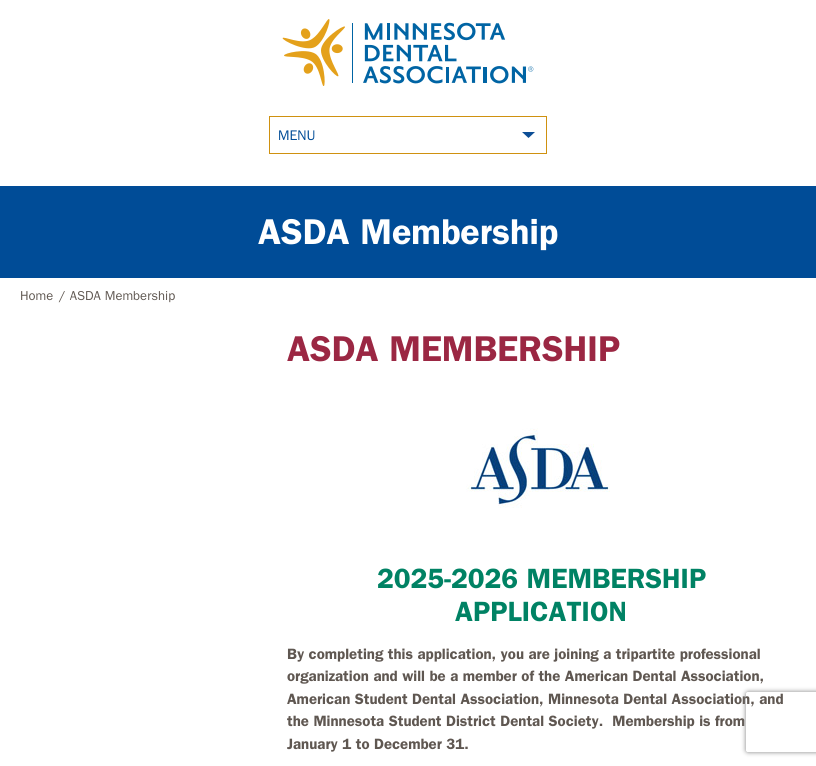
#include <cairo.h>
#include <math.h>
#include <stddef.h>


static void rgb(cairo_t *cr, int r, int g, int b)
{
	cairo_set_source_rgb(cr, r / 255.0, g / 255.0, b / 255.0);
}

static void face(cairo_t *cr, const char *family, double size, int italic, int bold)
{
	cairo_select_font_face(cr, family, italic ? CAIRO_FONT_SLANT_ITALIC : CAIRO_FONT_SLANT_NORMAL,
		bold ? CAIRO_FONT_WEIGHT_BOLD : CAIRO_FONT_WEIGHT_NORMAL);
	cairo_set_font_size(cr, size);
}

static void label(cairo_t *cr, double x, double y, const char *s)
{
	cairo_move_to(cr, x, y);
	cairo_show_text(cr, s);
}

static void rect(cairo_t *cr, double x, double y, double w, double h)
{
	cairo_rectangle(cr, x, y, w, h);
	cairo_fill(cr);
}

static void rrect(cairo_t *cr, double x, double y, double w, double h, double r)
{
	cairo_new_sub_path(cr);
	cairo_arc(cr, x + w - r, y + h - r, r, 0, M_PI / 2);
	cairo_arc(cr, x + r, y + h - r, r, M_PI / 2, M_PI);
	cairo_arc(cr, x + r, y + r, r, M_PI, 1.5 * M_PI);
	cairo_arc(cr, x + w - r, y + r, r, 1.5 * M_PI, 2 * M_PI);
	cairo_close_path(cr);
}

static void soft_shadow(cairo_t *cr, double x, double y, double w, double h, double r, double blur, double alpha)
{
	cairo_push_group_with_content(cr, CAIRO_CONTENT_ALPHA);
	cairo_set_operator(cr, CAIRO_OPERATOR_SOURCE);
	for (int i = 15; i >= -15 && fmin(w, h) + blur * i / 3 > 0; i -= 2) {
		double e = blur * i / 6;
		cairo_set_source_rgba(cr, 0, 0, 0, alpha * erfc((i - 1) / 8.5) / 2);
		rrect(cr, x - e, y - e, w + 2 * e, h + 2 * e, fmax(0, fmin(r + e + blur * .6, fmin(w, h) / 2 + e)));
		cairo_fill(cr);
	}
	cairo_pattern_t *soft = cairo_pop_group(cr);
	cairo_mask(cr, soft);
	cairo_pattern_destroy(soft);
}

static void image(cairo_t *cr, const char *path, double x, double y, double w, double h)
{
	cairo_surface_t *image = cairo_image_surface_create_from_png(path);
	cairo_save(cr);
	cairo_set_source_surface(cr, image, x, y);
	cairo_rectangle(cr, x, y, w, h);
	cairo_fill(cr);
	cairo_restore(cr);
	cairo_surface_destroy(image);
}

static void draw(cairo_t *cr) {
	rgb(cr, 255, 255, 255);
	cairo_paint(cr);
	image(cr, "image0.png", 282, 19, 252, 67);
	rgb(cr, 13, 78, 150);
	cairo_new_path(cr);
	cairo_move_to(cr, 522, 132);
	cairo_line_to(cr, 535, 132);
	cairo_line_to(cr, 528.5, 138);
	cairo_close_path(cr);
	cairo_fill(cr);
	cairo_rectangle(cr, 269.5, 116.5, 277, 37);
	rgb(cr, 207, 145, 16);
	cairo_set_line_width(cr, 1);
	cairo_stroke(cr);
	face(cr, "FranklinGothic", 14, 0, 0);
	rgb(cr, 0, 76, 151);
	label(cr, 278, 140, "MENU");
	rect(cr, 0, 186, 816, 92);
	face(cr, "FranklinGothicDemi", 36, 0, 0);
	rgb(cr, 255, 255, 255);
	label(cr, 258, 244, "ASDA Membership");
	face(cr, "FranklinGothic", 13, 0, 0);
	rgb(cr, 95, 87, 81);
	label(cr, 20, 300, "Home");
	label(cr, 59, 300, "/ ASDA Membership");
	face(cr, "FranklinGothicDemi", 36, 0, 0);
	rgb(cr, 155, 39, 67);
	label(cr, 287, 361, "ASDA MEMBERSHIP");
	image(cr, "image1.png", 466, 428, 144, 80);
	face(cr, "FranklinGothicDemi", 28, 0, 0);
	rgb(cr, 0, 130, 100);
	label(cr, 377, 588, "2025-2026 MEMBERSHIP");
	label(cr, 455, 621, "APPLICATION");
	face(cr, "FranklinGothicDemi", 15, 0, 0);
	rgb(cr, 95, 87, 81);
	label(cr, 287, 659, "By completing this application, you are joining a tripartite professional");
	label(cr, 287, 681, "organization and will be a member of the American Dental Association,");
	label(cr, 287, 704, "American Student Dental Association, Minnesota Dental Association, and");
	label(cr, 287, 726, "the Minnesota Student District Dental Society.  Membership is from");
	label(cr, 287, 749, "January 1 to December 31.");
	cairo_save(cr);
	cairo_set_fill_rule(cr, CAIRO_FILL_RULE_EVEN_ODD);
	cairo_new_path(cr);
	cairo_move_to(cr, 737, 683);
	cairo_line_to(cr, 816, 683);
	cairo_line_to(cr, 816, 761);
	cairo_line_to(cr, 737, 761);
	cairo_close_path(cr);
	cairo_move_to(cr, 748, 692);
	cairo_line_to(cr, 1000, 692);
	cairo_curve_to(cr, 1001, 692, 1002, 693, 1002, 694);
	cairo_line_to(cr, 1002, 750);
	cairo_curve_to(cr, 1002, 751, 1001, 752, 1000, 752);
	cairo_line_to(cr, 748, 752);
	cairo_curve_to(cr, 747, 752, 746, 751, 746, 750);
	cairo_line_to(cr, 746, 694);
	cairo_curve_to(cr, 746, 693, 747, 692, 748, 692);
	cairo_close_path(cr);
	cairo_clip(cr);
	rgb(cr, 128, 128, 128);
	soft_shadow(cr, 746, 692, 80, 60, 2, 2.5, 1);
	cairo_restore(cr);
}

int main(void) {
	cairo_surface_t *surface = cairo_image_surface_create(CAIRO_FORMAT_RGB24, 816, 766);
	cairo_t *cr = cairo_create(surface);
	cairo_font_options_t *options = cairo_font_options_create();
	cairo_font_options_set_hint_metrics(options, CAIRO_HINT_METRICS_OFF);
	cairo_font_options_set_hint_style(options, CAIRO_HINT_STYLE_NONE);
	cairo_set_font_options(cr, options);
	cairo_set_miter_limit(cr, 4);
	draw(cr);
	cairo_surface_write_to_png(surface, "render.png");
	cairo_font_options_destroy(options);
	cairo_destroy(cr);
	cairo_surface_destroy(surface);
	return 0;
}
